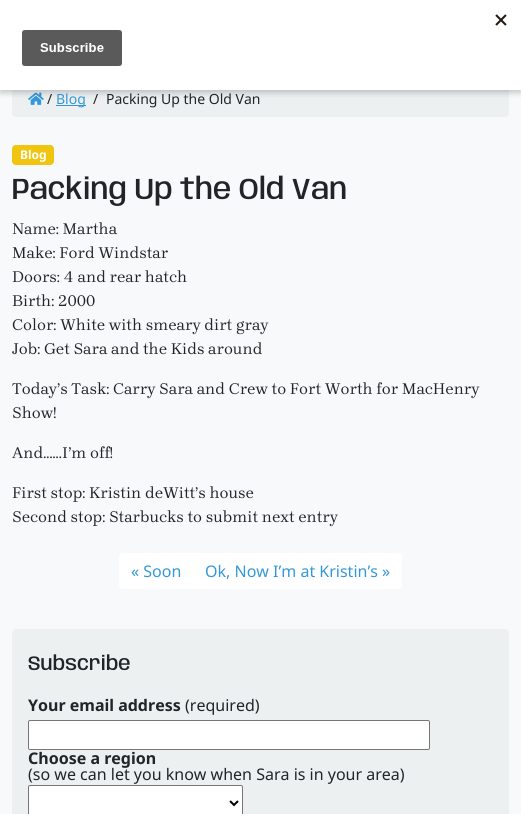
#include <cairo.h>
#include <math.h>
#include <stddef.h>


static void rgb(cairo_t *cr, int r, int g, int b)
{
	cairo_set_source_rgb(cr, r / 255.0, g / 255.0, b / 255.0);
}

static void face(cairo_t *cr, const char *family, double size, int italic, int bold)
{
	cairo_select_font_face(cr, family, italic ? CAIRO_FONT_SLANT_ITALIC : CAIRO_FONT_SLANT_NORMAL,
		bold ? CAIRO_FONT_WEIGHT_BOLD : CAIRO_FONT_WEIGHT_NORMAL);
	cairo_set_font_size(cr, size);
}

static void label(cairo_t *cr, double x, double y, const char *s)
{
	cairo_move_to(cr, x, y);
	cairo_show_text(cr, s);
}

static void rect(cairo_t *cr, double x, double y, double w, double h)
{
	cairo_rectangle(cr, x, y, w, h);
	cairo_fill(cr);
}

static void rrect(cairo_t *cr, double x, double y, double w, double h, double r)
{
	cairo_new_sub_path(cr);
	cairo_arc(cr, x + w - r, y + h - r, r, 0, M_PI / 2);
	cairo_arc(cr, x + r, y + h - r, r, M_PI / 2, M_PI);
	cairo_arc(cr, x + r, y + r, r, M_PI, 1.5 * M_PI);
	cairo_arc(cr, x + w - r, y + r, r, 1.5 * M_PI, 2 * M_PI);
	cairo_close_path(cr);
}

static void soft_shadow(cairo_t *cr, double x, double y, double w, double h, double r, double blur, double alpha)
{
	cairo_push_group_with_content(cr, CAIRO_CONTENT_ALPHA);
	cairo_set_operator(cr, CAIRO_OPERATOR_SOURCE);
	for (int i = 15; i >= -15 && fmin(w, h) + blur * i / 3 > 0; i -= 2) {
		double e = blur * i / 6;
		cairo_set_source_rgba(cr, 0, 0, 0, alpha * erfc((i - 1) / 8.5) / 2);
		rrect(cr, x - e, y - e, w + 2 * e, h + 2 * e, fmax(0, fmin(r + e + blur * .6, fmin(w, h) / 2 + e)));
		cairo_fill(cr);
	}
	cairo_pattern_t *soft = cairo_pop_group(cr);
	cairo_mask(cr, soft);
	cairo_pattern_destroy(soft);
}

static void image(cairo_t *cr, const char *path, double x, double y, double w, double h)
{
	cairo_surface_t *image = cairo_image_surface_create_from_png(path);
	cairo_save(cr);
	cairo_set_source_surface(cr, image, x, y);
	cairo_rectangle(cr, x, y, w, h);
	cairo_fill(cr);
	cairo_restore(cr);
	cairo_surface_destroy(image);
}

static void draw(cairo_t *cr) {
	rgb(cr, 248, 249, 250);
	cairo_paint(cr);
	rgb(cr, 236, 240, 241);
	rrect(cr, 12, 80, 497, 37, 4);
	cairo_fill(cr);
	image(cr, "image1.png", 28, 92, 16, 13);
	rgb(cr, 0, 0, 0);
	soft_shadow(cr, 0, 3, 521, 90, 0, 3, 0.2);
	rgb(cr, 255, 255, 255);
	rect(cr, 0, 0, 521, 90);
	image(cr, "image0.png", 22, 14, 485, 52);
	face(cr, "Noto Sans", 14, 0, 0);
	rgb(cr, 33, 37, 41);
	label(cr, 47, 104, "/");
	rgb(cr, 52, 152, 216);
	rect(cr, 56, 105, 30, 1);
	label(cr, 56, 104, "Blog");
	rgb(cr, 33, 37, 41);
	label(cr, 93, 104, "/");
	label(cr, 106, 104, "Packing Up the Old Van");
	rgb(cr, 241, 196, 15);
	rrect(cr, 12, 145, 42, 20, 4);
	cairo_fill(cr);
	face(cr, "Noto Sans", 12, 0, 1);
	rgb(cr, 255, 255, 255);
	label(cr, 20, 159, "Blog");
	face(cr, "Anybody Medium", 29.75, 0, 0);
	rgb(cr, 33, 37, 41);
	label(cr, 12, 199, "Packing Up the Old Van");
	face(cr, "Brygada 1918", 16, 0, 0);
	label(cr, 12, 234, "Name: Martha");
	label(cr, 12, 258, "Make: Ford Windstar");
	label(cr, 12, 282, "Doors: 4 and rear hatch");
	label(cr, 12, 306, "Birth: 2000");
	label(cr, 12, 330, "Color: White with smeary dirt gray");
	label(cr, 12, 354, "Job: Get Sara and the Kids around");
	label(cr, 12, 394, "Today’s Task: Carry Sara and Crew to Fort Worth for MacHenry");
	label(cr, 12, 418, "Show!");
	label(cr, 12, 458, "And……I’m off!");
	label(cr, 12, 498, "First stop: Kristin deWitt’s house");
	label(cr, 12, 522, "Second stop: Starbucks to submit next entry");
	rgb(cr, 255, 255, 255);
	cairo_new_path(cr);
	cairo_move_to(cr, 123, 553);
	cairo_line_to(cr, 193, 553);
	cairo_line_to(cr, 193, 589);
	cairo_line_to(cr, 123, 589);
	cairo_curve_to(cr, 121, 589, 119, 587, 119, 585);
	cairo_line_to(cr, 119, 557);
	cairo_curve_to(cr, 119, 555, 121, 553, 123, 553);
	cairo_close_path(cr);
	cairo_fill(cr);
	face(cr, "Noto Sans", 16, 0, 0);
	rgb(cr, 52, 152, 216);
	label(cr, 131, 577, "« Soon");
	rgb(cr, 255, 255, 255);
	cairo_new_path(cr);
	cairo_move_to(cr, 193, 553);
	cairo_line_to(cr, 398, 553);
	cairo_curve_to(cr, 400, 553, 402, 555, 402, 557);
	cairo_line_to(cr, 402, 585);
	cairo_curve_to(cr, 402, 587, 400, 589, 398, 589);
	cairo_line_to(cr, 193, 589);
	cairo_close_path(cr);
	cairo_fill(cr);
	rgb(cr, 52, 152, 216);
	label(cr, 205, 577, "Ok, Now I’m at Kristin’s »");
	rgb(cr, 236, 240, 241);
	rrect(cr, 12, 629, 497, 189, 4);
	cairo_fill(cr);
	face(cr, "Anybody Medium", 20, 0, 0);
	rgb(cr, 33, 37, 41);
	label(cr, 28, 670, "Subscribe");
	face(cr, "Noto Sans", 16, 0, 1);
	label(cr, 28, 711, "Your email address");
	face(cr, "Noto Sans", 16, 0, 0);
	label(cr, 185, 711, "(required)");
	rgb(cr, 255, 255, 255);
	rrect(cr, 28.5, 720.5, 401, 29, 1.5);
	cairo_fill_preserve(cr);
	rgb(cr, 118, 118, 118);
	cairo_set_line_width(cr, 1);
	cairo_stroke(cr);
	face(cr, "Noto Sans", 16, 0, 1);
	rgb(cr, 33, 37, 41);
	label(cr, 28, 764, "Choose a region");
	face(cr, "Noto Sans", 16, 0, 0);
	label(cr, 28, 780, "(so we can let you know when Sara is in your area)");
	rgb(cr, 255, 255, 255);
	rrect(cr, 28.5, 785.5, 214, 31, 1.5);
	cairo_fill_preserve(cr);
	rgb(cr, 118, 118, 118);
	cairo_stroke(cr);
	cairo_new_path(cr);
	cairo_move_to(cr, 230, 801);
	cairo_line_to(cr, 234, 805);
	cairo_line_to(cr, 238, 801);
	rgb(cr, 0, 0, 0);
	cairo_set_line_width(cr, 2);
	cairo_stroke(cr);
}

int main(void) {
	cairo_surface_t *surface = cairo_image_surface_create(CAIRO_FORMAT_RGB24, 521, 814);
	cairo_t *cr = cairo_create(surface);
	cairo_font_options_t *options = cairo_font_options_create();
	cairo_font_options_set_hint_metrics(options, CAIRO_HINT_METRICS_OFF);
	cairo_font_options_set_hint_style(options, CAIRO_HINT_STYLE_NONE);
	cairo_set_font_options(cr, options);
	cairo_set_miter_limit(cr, 4);
	draw(cr);
	cairo_surface_write_to_png(surface, "render.png");
	cairo_font_options_destroy(options);
	cairo_destroy(cr);
	cairo_surface_destroy(surface);
	return 0;
}
